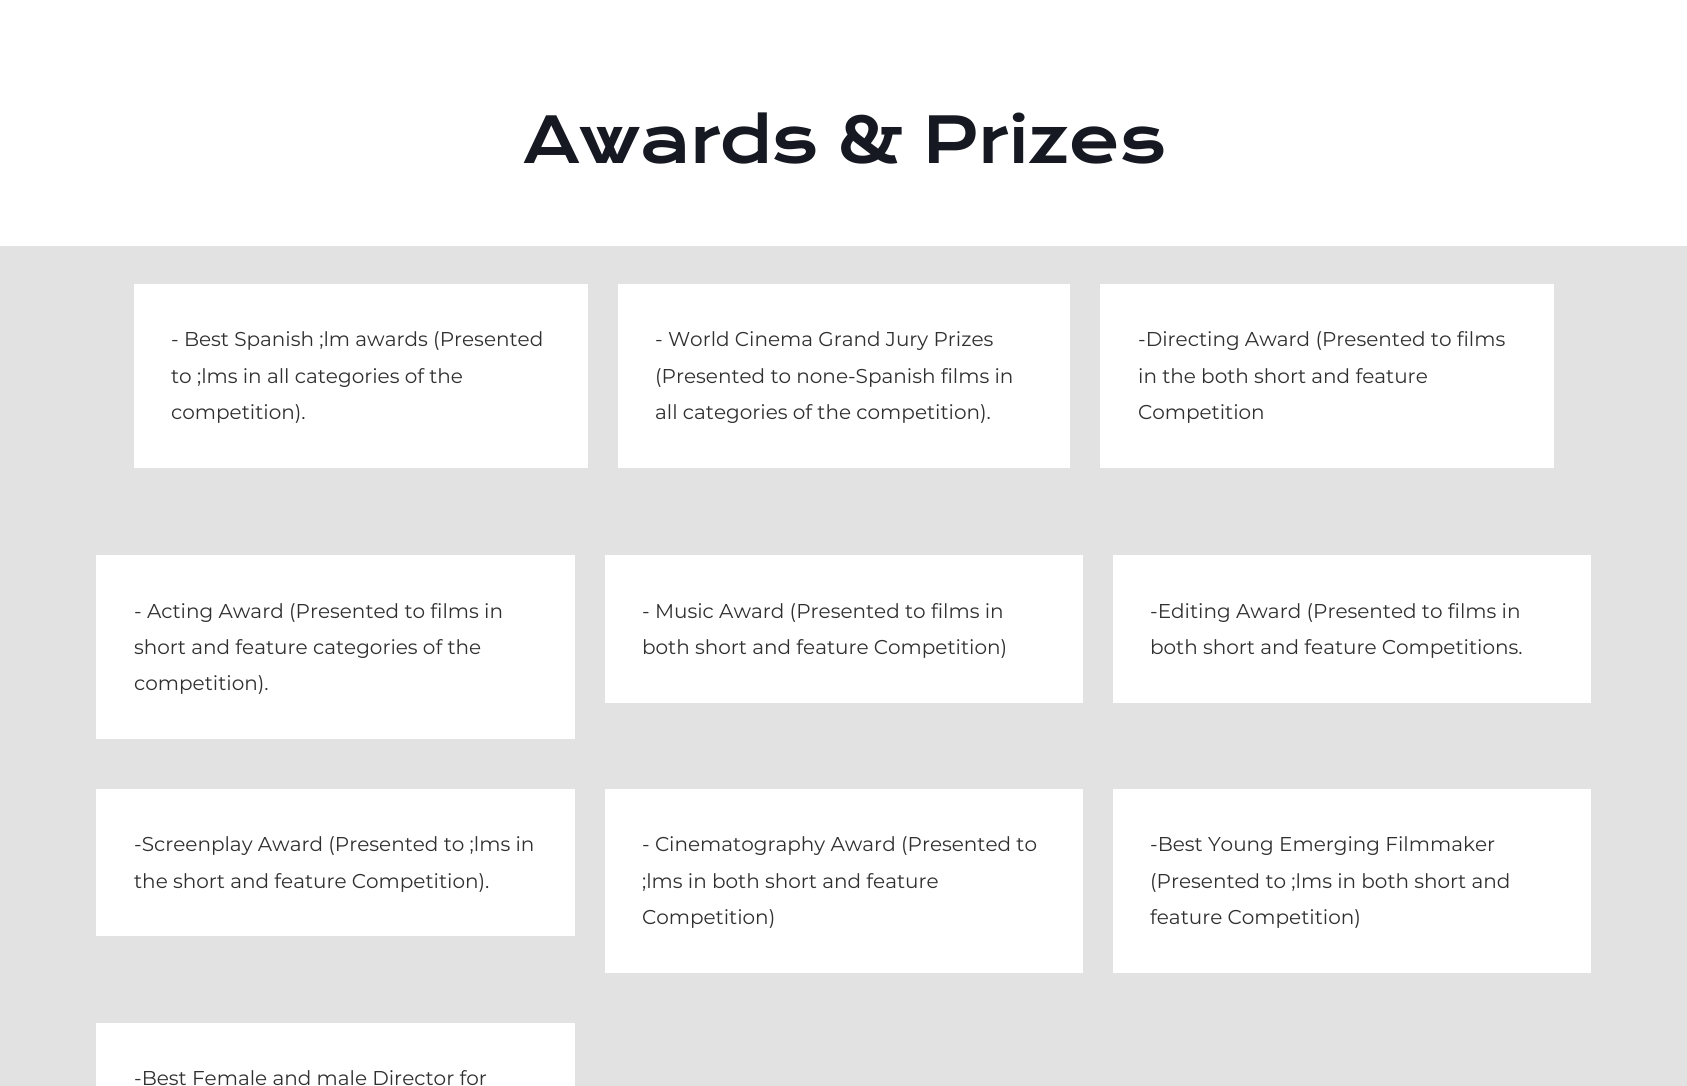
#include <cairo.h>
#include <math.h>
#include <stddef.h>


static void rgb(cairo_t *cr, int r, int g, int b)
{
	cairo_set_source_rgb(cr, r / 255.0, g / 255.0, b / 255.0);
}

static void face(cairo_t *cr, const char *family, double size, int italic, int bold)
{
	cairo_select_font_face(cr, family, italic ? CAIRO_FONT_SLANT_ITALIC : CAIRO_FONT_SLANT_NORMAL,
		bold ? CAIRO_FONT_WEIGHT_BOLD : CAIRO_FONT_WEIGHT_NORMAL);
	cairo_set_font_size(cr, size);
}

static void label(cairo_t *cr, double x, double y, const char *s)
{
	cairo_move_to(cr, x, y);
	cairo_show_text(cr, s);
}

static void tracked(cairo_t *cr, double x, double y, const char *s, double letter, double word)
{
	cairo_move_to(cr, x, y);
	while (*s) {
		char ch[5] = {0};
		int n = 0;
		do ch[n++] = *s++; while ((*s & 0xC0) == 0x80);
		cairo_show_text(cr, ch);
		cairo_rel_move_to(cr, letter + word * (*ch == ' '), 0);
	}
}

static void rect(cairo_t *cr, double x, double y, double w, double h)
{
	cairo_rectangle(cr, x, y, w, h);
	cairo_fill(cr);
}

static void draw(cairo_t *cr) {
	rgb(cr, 255, 255, 255);
	cairo_paint(cr);
	face(cr, "Krona One", 62.5, 0, 0);
	rgb(cr, 22, 25, 34);
	tracked(cr, 523, 163, "Awards & Prizes", -1.25, 0);
	rgb(cr, 226, 226, 226);
	rect(cr, 0, 246, 1687, 840);
	rgb(cr, 255, 255, 255);
	rect(cr, 134, 284, 454, 184);
	face(cr, "Montserrat", 20, 0, 0);
	rgb(cr, 48, 48, 48);
	label(cr, 171, 346, "- Best Spanish ;lm awards (Presented");
	label(cr, 171, 383, "to ;lms in all categories of the");
	label(cr, 171, 419, "competition).");
	rgb(cr, 255, 255, 255);
	rect(cr, 618, 284, 452, 184);
	rgb(cr, 48, 48, 48);
	label(cr, 655, 346, "- World Cinema Grand Jury Prizes");
	label(cr, 655, 383, "(Presented to none-Spanish films in");
	label(cr, 655, 419, "all categories of the competition).");
	rgb(cr, 255, 255, 255);
	rect(cr, 1100, 284, 454, 184);
	rgb(cr, 48, 48, 48);
	label(cr, 1138, 346, "-Directing Award (Presented to films");
	label(cr, 1138, 383, "in the both short and feature");
	label(cr, 1138, 419, "Competition");
	rgb(cr, 255, 255, 255);
	rect(cr, 96, 555, 479, 184);
	rgb(cr, 48, 48, 48);
	label(cr, 134, 618, "- Acting Award (Presented to films in");
	label(cr, 134, 654, "short and feature categories of the");
	label(cr, 134, 690, "competition).");
	rgb(cr, 255, 255, 255);
	rect(cr, 605, 555, 478, 148);
	rgb(cr, 48, 48, 48);
	label(cr, 642, 618, "- Music Award (Presented to films in");
	label(cr, 642, 654, "both short and feature Competition)");
	rgb(cr, 255, 255, 255);
	rect(cr, 1113, 555, 478, 148);
	rgb(cr, 48, 48, 48);
	label(cr, 1150, 618, "-Editing Award (Presented to films in");
	label(cr, 1150, 654, "both short and feature Competitions.");
	rgb(cr, 255, 255, 255);
	rect(cr, 96, 789, 479, 147);
	rgb(cr, 48, 48, 48);
	label(cr, 134, 851, "-Screenplay Award (Presented to ;lms in");
	label(cr, 134, 888, "the short and feature Competition).");
	rgb(cr, 255, 255, 255);
	rect(cr, 605, 789, 478, 184);
	rgb(cr, 48, 48, 48);
	label(cr, 642, 851, "- Cinematography Award (Presented to");
	label(cr, 642, 888, ";lms in both short and feature");
	label(cr, 642, 924, "Competition)");
	rgb(cr, 255, 255, 255);
	rect(cr, 1113, 789, 478, 184);
	rgb(cr, 48, 48, 48);
	label(cr, 1150, 851, "-Best Young Emerging Filmmaker");
	label(cr, 1150, 888, "(Presented to ;lms in both short and");
	label(cr, 1150, 924, "feature Competition)");
	rgb(cr, 255, 255, 255);
	rect(cr, 96, 1023, 479, 63);
	rgb(cr, 48, 48, 48);
	label(cr, 134, 1085, "-Best Female and male Director for");
}

int main(void) {
	cairo_surface_t *surface = cairo_image_surface_create(CAIRO_FORMAT_RGB24, 1687, 1086);
	cairo_t *cr = cairo_create(surface);
	cairo_font_options_t *options = cairo_font_options_create();
	cairo_font_options_set_hint_metrics(options, CAIRO_HINT_METRICS_OFF);
	cairo_font_options_set_hint_style(options, CAIRO_HINT_STYLE_NONE);
	cairo_set_font_options(cr, options);
	cairo_set_miter_limit(cr, 4);
	draw(cr);
	cairo_surface_write_to_png(surface, "render.png");
	cairo_font_options_destroy(options);
	cairo_destroy(cr);
	cairo_surface_destroy(surface);
	return 0;
}
